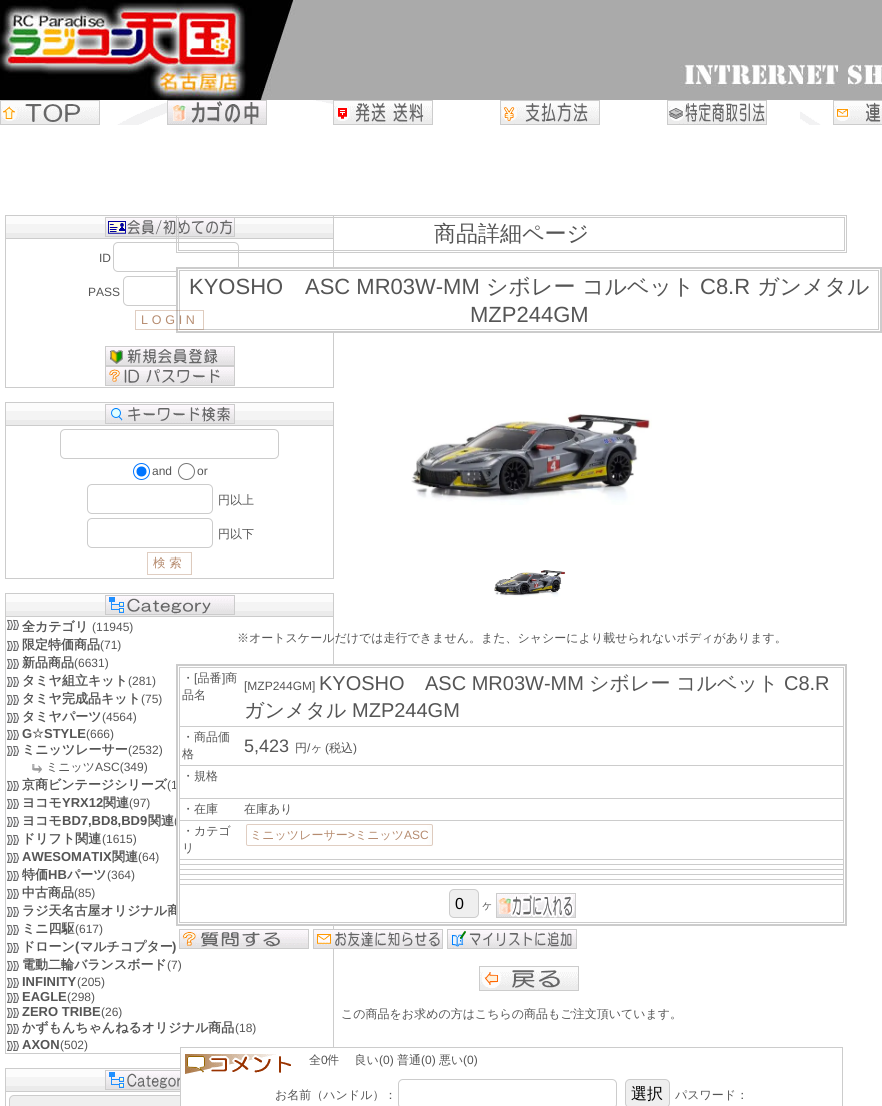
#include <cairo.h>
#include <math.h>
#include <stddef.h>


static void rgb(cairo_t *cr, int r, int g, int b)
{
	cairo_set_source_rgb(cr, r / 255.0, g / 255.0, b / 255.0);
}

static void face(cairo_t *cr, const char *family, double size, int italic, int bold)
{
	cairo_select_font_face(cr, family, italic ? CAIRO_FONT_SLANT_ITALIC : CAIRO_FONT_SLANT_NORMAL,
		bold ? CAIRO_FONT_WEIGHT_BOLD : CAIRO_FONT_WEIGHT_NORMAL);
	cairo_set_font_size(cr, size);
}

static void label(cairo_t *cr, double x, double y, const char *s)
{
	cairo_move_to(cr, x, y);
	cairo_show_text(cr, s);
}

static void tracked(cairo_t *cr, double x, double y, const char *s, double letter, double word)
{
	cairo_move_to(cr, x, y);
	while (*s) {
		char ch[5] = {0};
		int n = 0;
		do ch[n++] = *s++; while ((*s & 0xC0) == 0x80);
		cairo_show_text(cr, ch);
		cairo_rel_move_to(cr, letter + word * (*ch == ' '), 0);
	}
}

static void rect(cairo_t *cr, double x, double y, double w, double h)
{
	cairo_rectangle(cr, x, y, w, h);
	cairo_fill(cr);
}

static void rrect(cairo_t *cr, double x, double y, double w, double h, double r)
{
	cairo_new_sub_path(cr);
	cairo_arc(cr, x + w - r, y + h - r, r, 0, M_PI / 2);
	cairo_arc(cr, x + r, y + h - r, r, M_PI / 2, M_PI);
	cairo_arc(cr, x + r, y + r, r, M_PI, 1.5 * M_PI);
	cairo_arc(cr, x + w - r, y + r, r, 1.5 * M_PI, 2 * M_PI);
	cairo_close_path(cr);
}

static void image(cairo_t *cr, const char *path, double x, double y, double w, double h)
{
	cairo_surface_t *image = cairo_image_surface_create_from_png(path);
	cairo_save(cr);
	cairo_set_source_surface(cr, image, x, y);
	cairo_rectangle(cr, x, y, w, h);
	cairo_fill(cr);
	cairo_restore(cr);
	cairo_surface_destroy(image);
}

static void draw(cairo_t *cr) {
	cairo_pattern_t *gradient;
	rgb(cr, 255, 255, 255);
	cairo_paint(cr);
	image(cr, "image0.png", 117, 100, 704, 25);
	image(cr, "image1.png", 0, 0, 882, 100);
	image(cr, "image2.png", 0, 100, 100, 25);
	image(cr, "image3.png", 167, 100, 100, 25);
	image(cr, "image4.png", 333, 100, 100, 25);
	image(cr, "image5.png", 500, 100, 100, 25);
	image(cr, "image6.png", 667, 100, 100, 25);
	image(cr, "image7.png", 833, 100, 49, 25);
	rgb(cr, 204, 204, 204);
	rect(cr, 5, 215, 329, 173);
	image(cr, "image8.png", 6, 216, 327, 22);
	image(cr, "image9.png", 105, 217, 130, 20);
	rgb(cr, 255, 255, 255);
	rect(cr, 6, 239, 327, 148);
	face(cr, "Liberation Sans", 12, 0, 0);
	rgb(cr, 85, 85, 85);
	label(cr, 99, 262, "ID");
	rrect(cr, 113.5, 242.5, 125, 29, 4.5);
	rgb(cr, 204, 204, 204);
	cairo_set_line_width(cr, 1);
	cairo_stroke(cr);
	rgb(cr, 85, 85, 85);
	label(cr, 88, 296, "PASS");
	rrect(cr, 123.5, 276.5, 125, 29, 4.5);
	rgb(cr, 204, 204, 204);
	cairo_stroke(cr);
	rect(cr, 176, 267, 706, 66);
	rgb(cr, 255, 255, 255);
	rect(cr, 178, 269, 702, 62);
	rgb(cr, 204, 204, 204);
	rect(cr, 179, 270, 700, 60);
	rgb(cr, 255, 255, 255);
	rect(cr, 180, 271, 698, 58);
	gradient = cairo_pattern_create_linear(336, 320, 135, 320);
	cairo_pattern_add_color_stop_rgba(gradient, 0, 0.914, 0.745, 0.416, 0.8);
	cairo_pattern_add_color_stop_rgba(gradient, 0.33, 0.573, 0.435, 0.204, 0.8);
	cairo_pattern_add_color_stop_rgba(gradient, 0.67, 0.573, 0.435, 0.204, 0);
	cairo_pattern_add_color_stop_rgba(gradient, 1, 0.133, 0.133, 0.133, 0);
	cairo_set_source(cr, gradient);
	cairo_pattern_destroy(gradient);
	rect(cr, 203, 310, 1, 20);
	cairo_rectangle(cr, 135.5, 310.5, 68, 19);
	cairo_set_source_rgba(cr, 0.588, 0.353, 0.196, 0.3);
	cairo_stroke(cr);
	face(cr, "Liberation Sans", 12.5, 0, 0);
	rgb(cr, 182, 140, 112);
	tracked(cr, 141, 324, "LOGIN", 3.75, 0);
	image(cr, "image10.png", 105, 346, 130, 20);
	image(cr, "image11.png", 105, 366, 130, 20);
	rgb(cr, 204, 204, 204);
	rect(cr, 5, 402, 329, 177);
	image(cr, "image8.png", 6, 403, 327, 22);
	image(cr, "image12.png", 105, 404, 130, 20);
	rgb(cr, 255, 255, 255);
	rect(cr, 6, 426, 327, 152);
	rrect(cr, 60.5, 429.5, 218, 29, 4.5);
	rgb(cr, 204, 204, 204);
	cairo_stroke(cr);
	cairo_arc(cr, 141.5, 471.5, 8, 0, 2 * M_PI);
	rgb(cr, 0, 117, 255);
	cairo_stroke(cr);
	cairo_arc(cr, 141.5, 471.5, 5, 0, 2 * M_PI);
	cairo_fill(cr);
	face(cr, "Liberation Sans", 12, 0, 0);
	rgb(cr, 85, 85, 85);
	label(cr, 152, 475, "and");
	cairo_new_path(cr);
	cairo_arc(cr, 186.5, 471.5, 8, 0, 2 * M_PI);
	rgb(cr, 118, 118, 118);
	cairo_stroke(cr);
	rgb(cr, 85, 85, 85);
	label(cr, 197, 475, "or");
	rrect(cr, 87.5, 484.5, 125, 29, 4.5);
	rgb(cr, 204, 204, 204);
	cairo_stroke(cr);
	face(cr, "WenQuanYi Zen Hei Medium", 12, 0, 0);
	rgb(cr, 85, 85, 85);
	label(cr, 218, 504, "円以上");
	rrect(cr, 87.5, 518.5, 125, 29, 4.5);
	rgb(cr, 204, 204, 204);
	cairo_stroke(cr);
	rgb(cr, 85, 85, 85);
	label(cr, 218, 538, "円以下");
	gradient = cairo_pattern_create_linear(276, 564, 147, 564);
	cairo_pattern_add_color_stop_rgba(gradient, 0, 0.929, 0.796, 0.533, 1);
	cairo_pattern_add_color_stop_rgba(gradient, 0.33, 0.659, 0.549, 0.365, 1);
	cairo_pattern_add_color_stop_rgba(gradient, 0.67, 1, 1, 1, 1);
	cairo_pattern_add_color_stop_rgba(gradient, 1, 1, 1, 1, 1);
	cairo_set_source(cr, gradient);
	cairo_pattern_destroy(gradient);
	rect(cr, 190, 552, 2, 23);
	cairo_rectangle(cr, 147.5, 552.5, 44, 22);
	cairo_set_source_rgba(cr, 0.588, 0.353, 0.196, 0.3);
	cairo_stroke(cr);
	face(cr, "WenQuanYi Zen Hei Medium", 12.5, 0, 0);
	rgb(cr, 182, 140, 112);
	tracked(cr, 153, 567, "検索", 3.75, 0);
	rgb(cr, 204, 204, 204);
	rect(cr, 5, 593, 329, 461);
	image(cr, "image8.png", 6, 594, 327, 22);
	image(cr, "image13.png", 105, 595, 130, 20);
	rgb(cr, 255, 255, 255);
	rect(cr, 6, 617, 327, 436);
	image(cr, "image14.png", 7, 619, 12, 11);
	face(cr, "WenQuanYi Zen Hei", 13, 0, 1);
	rgb(cr, 85, 85, 85);
	label(cr, 22, 631, "全カテゴリ");
	face(cr, "Liberation Sans", 12, 0, 0);
	label(cr, 92, 631, "(11945)");
	image(cr, "image14.png", 7, 640, 12, 11);
	face(cr, "WenQuanYi Zen Hei", 13, 0, 1);
	label(cr, 22, 649, "限定特価商品");
	face(cr, "Liberation Sans", 12, 0, 0);
	label(cr, 100, 649, "(71)");
	image(cr, "image14.png", 7, 658, 12, 11);
	face(cr, "WenQuanYi Zen Hei", 13, 0, 1);
	label(cr, 22, 667, "新品商品");
	face(cr, "Liberation Sans", 12, 0, 0);
	label(cr, 74, 667, "(6631)");
	image(cr, "image14.png", 7, 676, 12, 11);
	face(cr, "WenQuanYi Zen Hei", 13, 0, 1);
	label(cr, 22, 685, "タミヤ組立キット");
	face(cr, "Liberation Sans", 12, 0, 0);
	label(cr, 128, 685, "(281)");
	image(cr, "image14.png", 7, 694, 12, 11);
	face(cr, "WenQuanYi Zen Hei", 13, 0, 1);
	label(cr, 22, 703, "タミヤ完成品キット");
	face(cr, "Liberation Sans", 12, 0, 0);
	label(cr, 141, 703, "(75)");
	image(cr, "image14.png", 7, 712, 12, 11);
	face(cr, "WenQuanYi Zen Hei", 13, 0, 1);
	label(cr, 22, 721, "タミヤパーツ");
	face(cr, "Liberation Sans", 12, 0, 0);
	label(cr, 102, 721, "(4564)");
	image(cr, "image14.png", 7, 729, 12, 11);
	face(cr, "Liberation Sans", 13, 0, 1);
	label(cr, 22, 738, "G");
	face(cr, "DejaVu Sans", 13, 0, 1);
	label(cr, 32, 738, "☆");
	face(cr, "Liberation Sans", 13, 0, 1);
	label(cr, 44, 738, "STYLE");
	face(cr, "Liberation Sans", 12, 0, 0);
	label(cr, 86, 738, "(666)");
	image(cr, "image14.png", 7, 745, 12, 11);
	face(cr, "WenQuanYi Zen Hei", 13, 0, 1);
	label(cr, 22, 754, "ミニッツレーサー");
	face(cr, "Liberation Sans", 12, 0, 0);
	label(cr, 128, 754, "(2532)");
	image(cr, "image15.png", 32, 764, 10, 9);
	face(cr, "WenQuanYi Zen Hei Medium", 12, 0, 0);
	label(cr, 46, 771, "ミニッツ");
	face(cr, "Liberation Sans", 12, 0, 0);
	label(cr, 95, 771, "ASC(349)");
	image(cr, "image14.png", 7, 780, 12, 11);
	face(cr, "WenQuanYi Zen Hei", 13, 0, 1);
	label(cr, 22, 789, "京商ビンテージシリーズ");
	face(cr, "Liberation Sans", 12, 0, 0);
	label(cr, 167, 789, "(1");
	image(cr, "image14.png", 7, 798, 12, 11);
	face(cr, "WenQuanYi Zen Hei", 13, 0, 1);
	label(cr, 22, 807, "ヨコモ");
	face(cr, "Liberation Sans", 13, 0, 1);
	label(cr, 62, 807, "YRX12");
	face(cr, "WenQuanYi Zen Hei", 13, 0, 1);
	label(cr, 103, 807, "関連");
	face(cr, "Liberation Sans", 12, 0, 0);
	label(cr, 129, 807, "(97)");
	image(cr, "image14.png", 7, 816, 12, 11);
	face(cr, "WenQuanYi Zen Hei", 13, 0, 1);
	label(cr, 22, 825, "ヨコモ");
	face(cr, "Liberation Sans", 13, 0, 1);
	label(cr, 62, 825, "BD7,BD8,BD9");
	face(cr, "WenQuanYi Zen Hei", 13, 0, 1);
	label(cr, 148, 825, "関連");
	face(cr, "Liberation Sans", 12, 0, 0);
	label(cr, 174, 825, "(");
	image(cr, "image14.png", 7, 834, 12, 11);
	face(cr, "WenQuanYi Zen Hei", 13, 0, 1);
	label(cr, 22, 843, "ドリフト関連");
	face(cr, "Liberation Sans", 12, 0, 0);
	label(cr, 102, 843, "(1615)");
	image(cr, "image14.png", 7, 852, 12, 11);
	face(cr, "Liberation Sans", 13, 0, 1);
	label(cr, 22, 861, "AWESOMATIX");
	face(cr, "WenQuanYi Zen Hei", 13, 0, 1);
	label(cr, 112, 861, "関連");
	face(cr, "Liberation Sans", 12, 0, 0);
	label(cr, 138, 861, "(64)");
	image(cr, "image14.png", 7, 870, 12, 11);
	face(cr, "WenQuanYi Zen Hei", 13, 0, 1);
	label(cr, 22, 879, "特価");
	face(cr, "Liberation Sans", 13, 0, 1);
	label(cr, 48, 879, "HB");
	face(cr, "WenQuanYi Zen Hei", 13, 0, 1);
	label(cr, 67, 879, "パーツ");
	face(cr, "Liberation Sans", 12, 0, 0);
	label(cr, 107, 879, "(364)");
	image(cr, "image14.png", 7, 888, 12, 11);
	face(cr, "WenQuanYi Zen Hei", 13, 0, 1);
	label(cr, 22, 897, "中古商品");
	face(cr, "Liberation Sans", 12, 0, 0);
	label(cr, 74, 897, "(85)");
	image(cr, "image14.png", 7, 906, 12, 11);
	face(cr, "WenQuanYi Zen Hei", 13, 0, 1);
	label(cr, 22, 915, "ラジ天名古屋オリジナル商");
	image(cr, "image14.png", 7, 924, 12, 11);
	label(cr, 22, 933, "ミニ四駆");
	face(cr, "Liberation Sans", 12, 0, 0);
	label(cr, 75, 933, "(617)");
	image(cr, "image14.png", 7, 942, 12, 11);
	face(cr, "WenQuanYi Zen Hei", 13, 0, 1);
	label(cr, 22, 951, "ドローン");
	face(cr, "Liberation Sans", 13, 0, 1);
	label(cr, 75, 951, "(");
	face(cr, "WenQuanYi Zen Hei", 13, 0, 1);
	label(cr, 80, 951, "マルチコプター");
	face(cr, "Liberation Sans", 13, 0, 1);
	label(cr, 172, 951, ")");
	image(cr, "image14.png", 7, 960, 12, 11);
	face(cr, "WenQuanYi Zen Hei", 13, 0, 1);
	label(cr, 22, 969, "電動二輪バランスボード");
	face(cr, "Liberation Sans", 12, 0, 0);
	label(cr, 167, 969, "(7)");
	image(cr, "image14.png", 7, 977, 12, 11);
	face(cr, "Liberation Sans", 13, 0, 1);
	label(cr, 22, 986, "INFINITY");
	face(cr, "Liberation Sans", 12, 0, 0);
	label(cr, 77, 986, "(205)");
	image(cr, "image14.png", 7, 992, 12, 11);
	face(cr, "Liberation Sans", 13, 0, 1);
	label(cr, 22, 1001, "EAGLE");
	face(cr, "Liberation Sans", 12, 0, 0);
	label(cr, 67, 1001, "(298)");
	image(cr, "image14.png", 7, 1007, 12, 11);
	face(cr, "Liberation Sans", 13, 0, 1);
	label(cr, 22, 1016, "ZERO TRIBE");
	face(cr, "Liberation Sans", 12, 0, 0);
	label(cr, 101, 1016, "(26)");
	image(cr, "image14.png", 7, 1023, 12, 11);
	face(cr, "WenQuanYi Zen Hei", 13, 0, 1);
	label(cr, 22, 1032, "かずもんちゃんねるオリジナル商品");
	face(cr, "Liberation Sans", 12, 0, 0);
	label(cr, 235, 1032, "(18)");
	image(cr, "image14.png", 7, 1040, 12, 11);
	face(cr, "Liberation Sans", 13, 0, 1);
	label(cr, 22, 1049, "AXON");
	face(cr, "Liberation Sans", 12, 0, 0);
	label(cr, 60, 1049, "(502)");
	rgb(cr, 204, 204, 204);
	rect(cr, 5, 1068, 175, 38);
	image(cr, "image16.png", 6, 1069, 174, 22);
	image(cr, "image17.png", 105, 1070, 75, 20);
	rgb(cr, 255, 255, 255);
	rect(cr, 6, 1092, 174, 14);
	rgb(cr, 239, 239, 239);
	rrect(cr, 9.5, 1095.5, 320, 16, 4.5);
	cairo_fill_preserve(cr);
	rgb(cr, 204, 204, 204);
	cairo_stroke(cr);
	cairo_rectangle(cr, 176.5, 215.5, 670, 37);
	cairo_stroke(cr);
	cairo_rectangle(cr, 178.5, 217.5, 666, 33);
	cairo_stroke(cr);
	face(cr, "WenQuanYi Zen Hei Medium", 22, 0, 0);
	rgb(cr, 85, 85, 85);
	label(cr, 434, 241, "商品詳細ページ");
	face(cr, "Liberation Sans", 22, 0, 0);
	label(cr, 189, 294, "KYOSHO");
	label(cr, 305, 294, "ASC MR03W-MM");
	face(cr, "WenQuanYi Zen Hei Medium", 22, 0, 0);
	label(cr, 486, 294, "シボレー");
	label(cr, 582, 294, "コルベット");
	face(cr, "Liberation Sans", 22, 0, 0);
	label(cr, 700, 294, "C8.R");
	face(cr, "WenQuanYi Zen Hei Medium", 22, 0, 0);
	label(cr, 757, 294, "ガンメタル");
	face(cr, "Liberation Sans", 22, 0, 0);
	label(cr, 470, 322, "MZP244GM");
	image(cr, "image18.png", 411, 413, 241, 92);
	image(cr, "image19.png", 494, 570, 72, 27);
	face(cr, "WenQuanYi Zen Hei Medium", 12, 0, 0);
	label(cr, 237, 642, "※オートスケールだけでは走行できません。また、シャシーにより載せられないボディがあります。");
	rgb(cr, 204, 204, 204);
	rect(cr, 176, 664, 671, 262);
	rgb(cr, 255, 255, 255);
	rect(cr, 178, 666, 667, 258);
	rgb(cr, 204, 204, 204);
	rect(cr, 179, 667, 665, 256);
	rgb(cr, 255, 255, 255);
	rect(cr, 180, 668, 663, 58);
	rgb(cr, 85, 85, 85);
	label(cr, 182, 682, "・ 品番 商");
	face(cr, "Liberation Sans", 12, 0, 0);
	label(cr, 194, 682, "[");
	label(cr, 222, 682, "]");
	face(cr, "WenQuanYi Zen Hei Medium", 12, 0, 0);
	label(cr, 182, 699, "品名");
	face(cr, "Liberation Sans", 12, 0, 0);
	label(cr, 244, 690, "[MZP244GM]");
	face(cr, "Liberation Sans", 20, 0, 0);
	label(cr, 319, 690, "KYOSHO");
	label(cr, 425, 690, "ASC MR03W-MM");
	face(cr, "WenQuanYi Zen Hei Medium", 20, 0, 0);
	label(cr, 589, 690, "シボレー");
	label(cr, 676, 690, "コルベット");
	face(cr, "Liberation Sans", 20, 0, 0);
	label(cr, 784, 690, "C8.R");
	face(cr, "WenQuanYi Zen Hei Medium", 20, 0, 0);
	label(cr, 244, 717, "ガンメタル");
	face(cr, "Liberation Sans", 20, 0, 0);
	label(cr, 352, 717, "MZP244GM");
	rgb(cr, 255, 255, 255);
	rect(cr, 180, 727, 663, 38);
	face(cr, "WenQuanYi Zen Hei Medium", 12, 0, 0);
	rgb(cr, 85, 85, 85);
	label(cr, 182, 741, "・商品価");
	label(cr, 182, 758, "格");
	face(cr, "Liberation Sans", 18, 0, 0);
	label(cr, 244, 752, "5,423");
	face(cr, "WenQuanYi Zen Hei Medium", 12, 0, 0);
	label(cr, 295, 752, "円 ヶ");
	face(cr, "Liberation Sans", 12, 0, 0);
	label(cr, 325, 752, "(");
	face(cr, "WenQuanYi Zen Hei Medium", 12, 0, 0);
	label(cr, 329, 752, "税込");
	face(cr, "Liberation Sans", 12, 0, 0);
	label(cr, 307, 752, "/");
	label(cr, 353, 752, ")");
	rgb(cr, 255, 255, 255);
	rect(cr, 180, 766, 663, 32);
	face(cr, "WenQuanYi Zen Hei Medium", 12, 0, 0);
	rgb(cr, 85, 85, 85);
	label(cr, 182, 780, "・規格");
	rgb(cr, 255, 255, 255);
	rect(cr, 180, 799, 663, 21);
	rgb(cr, 85, 85, 85);
	label(cr, 182, 813, "・在庫");
	label(cr, 244, 813, "在庫あり");
	rgb(cr, 255, 255, 255);
	rect(cr, 180, 821, 663, 38);
	rgb(cr, 85, 85, 85);
	label(cr, 182, 835, "・カテゴ");
	label(cr, 182, 852, "リ");
	gradient = cairo_pattern_create_linear(798, 835, 243, 835);
	cairo_pattern_add_color_stop_rgba(gradient, 0, 0.929, 0.796, 0.533, 1);
	cairo_pattern_add_color_stop_rgba(gradient, 0.33, 0.659, 0.549, 0.365, 1);
	cairo_pattern_add_color_stop_rgba(gradient, 0.67, 1, 1, 1, 1);
	cairo_pattern_add_color_stop_rgba(gradient, 1, 1, 1, 1, 1);
	cairo_set_source(cr, gradient);
	cairo_pattern_destroy(gradient);
	rrect(cr, 246, 824, 187, 22, 2);
	cairo_fill(cr);
	rrect(cr, 246.5, 824.5, 186, 21, 1.5);
	cairo_set_source_rgba(cr, 0.588, 0.353, 0.196, 0.3);
	cairo_stroke(cr);
	rgb(cr, 182, 140, 112);
	label(cr, 250, 839, "ミニッツレーサー");
	face(cr, "Liberation Sans", 12, 0, 0);
	label(cr, 348, 839, ">");
	face(cr, "WenQuanYi Zen Hei Medium", 12, 0, 0);
	label(cr, 355, 839, "ミニッツ");
	face(cr, "Liberation Sans", 12, 0, 0);
	label(cr, 404, 839, "ASC");
	rgb(cr, 255, 255, 255);
	rect(cr, 180, 860, 663, 4);
	rect(cr, 180, 865, 663, 4);
	rect(cr, 180, 870, 663, 4);
	rect(cr, 180, 875, 663, 4);
	rect(cr, 180, 880, 663, 4);
	rect(cr, 180, 885, 663, 37);
	rgb(cr, 239, 239, 239);
	rrect(cr, 449.5, 889.5, 29, 28, 4.5);
	cairo_fill_preserve(cr);
	rgb(cr, 204, 204, 204);
	cairo_stroke(cr);
	face(cr, "Liberation Sans", 16, 0, 0);
	rgb(cr, 0, 0, 0);
	label(cr, 455, 909, "0");
	face(cr, "WenQuanYi Zen Hei Medium", 12, 0, 0);
	rgb(cr, 85, 85, 85);
	label(cr, 481, 909, "ヶ");
	image(cr, "image20.png", 496, 893, 80, 25);
	image(cr, "image21.png", 179, 929, 130, 20);
	image(cr, "image22.png", 313, 929, 130, 20);
	image(cr, "image23.png", 447, 929, 130, 20);
	image(cr, "image24.png", 479, 966, 100, 25);
	label(cr, 341, 1018, "この商品をお求めの方はこちらの商品もご注文頂いています。");
	rgb(cr, 204, 204, 204);
	rect(cr, 180, 1047, 663, 59);
	rgb(cr, 255, 255, 255);
	rect(cr, 181, 1048, 661, 58);
	image(cr, "image25.png", 185, 1054, 106, 20);
	rgb(cr, 85, 85, 85);
	label(cr, 309, 1064, "全");
	face(cr, "Liberation Sans", 12, 0, 0);
	label(cr, 321, 1064, "0");
	face(cr, "WenQuanYi Zen Hei Medium", 12, 0, 0);
	label(cr, 327, 1064, "件　 良い");
	face(cr, "Liberation Sans", 12, 0, 0);
	label(cr, 379, 1064, "(0)");
	face(cr, "WenQuanYi Zen Hei Medium", 12, 0, 0);
	label(cr, 397, 1064, "普通");
	face(cr, "Liberation Sans", 12, 0, 0);
	label(cr, 421, 1064, "(0)");
	face(cr, "WenQuanYi Zen Hei Medium", 12, 0, 0);
	label(cr, 439, 1064, "悪い");
	face(cr, "Liberation Sans", 12, 0, 0);
	label(cr, 463, 1064, "(0)");
	face(cr, "WenQuanYi Zen Hei Medium", 12, 0, 0);
	label(cr, 275, 1099, "お名前（ハンドル）：");
	rrect(cr, 398.5, 1079.5, 218, 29, 4.5);
	rgb(cr, 204, 204, 204);
	cairo_stroke(cr);
	rgb(cr, 239, 239, 239);
	rrect(cr, 625.5, 1079.5, 44, 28, 4.5);
	cairo_fill_preserve(cr);
	rgb(cr, 204, 204, 204);
	cairo_stroke(cr);
	face(cr, "WenQuanYi Zen Hei Medium", 16, 0, 0);
	rgb(cr, 0, 0, 0);
	label(cr, 631, 1099, "選択");
	face(cr, "WenQuanYi Zen Hei Medium", 12, 0, 0);
	rgb(cr, 85, 85, 85);
	label(cr, 675, 1099, "パスワード：");
}

int main(void) {
	cairo_surface_t *surface = cairo_image_surface_create(CAIRO_FORMAT_RGB24, 882, 1106);
	cairo_t *cr = cairo_create(surface);
	cairo_font_options_t *options = cairo_font_options_create();
	cairo_font_options_set_hint_metrics(options, CAIRO_HINT_METRICS_OFF);
	cairo_font_options_set_hint_style(options, CAIRO_HINT_STYLE_NONE);
	cairo_set_font_options(cr, options);
	cairo_set_miter_limit(cr, 4);
	draw(cr);
	cairo_surface_write_to_png(surface, "render.png");
	cairo_font_options_destroy(options);
	cairo_destroy(cr);
	cairo_surface_destroy(surface);
	return 0;
}
